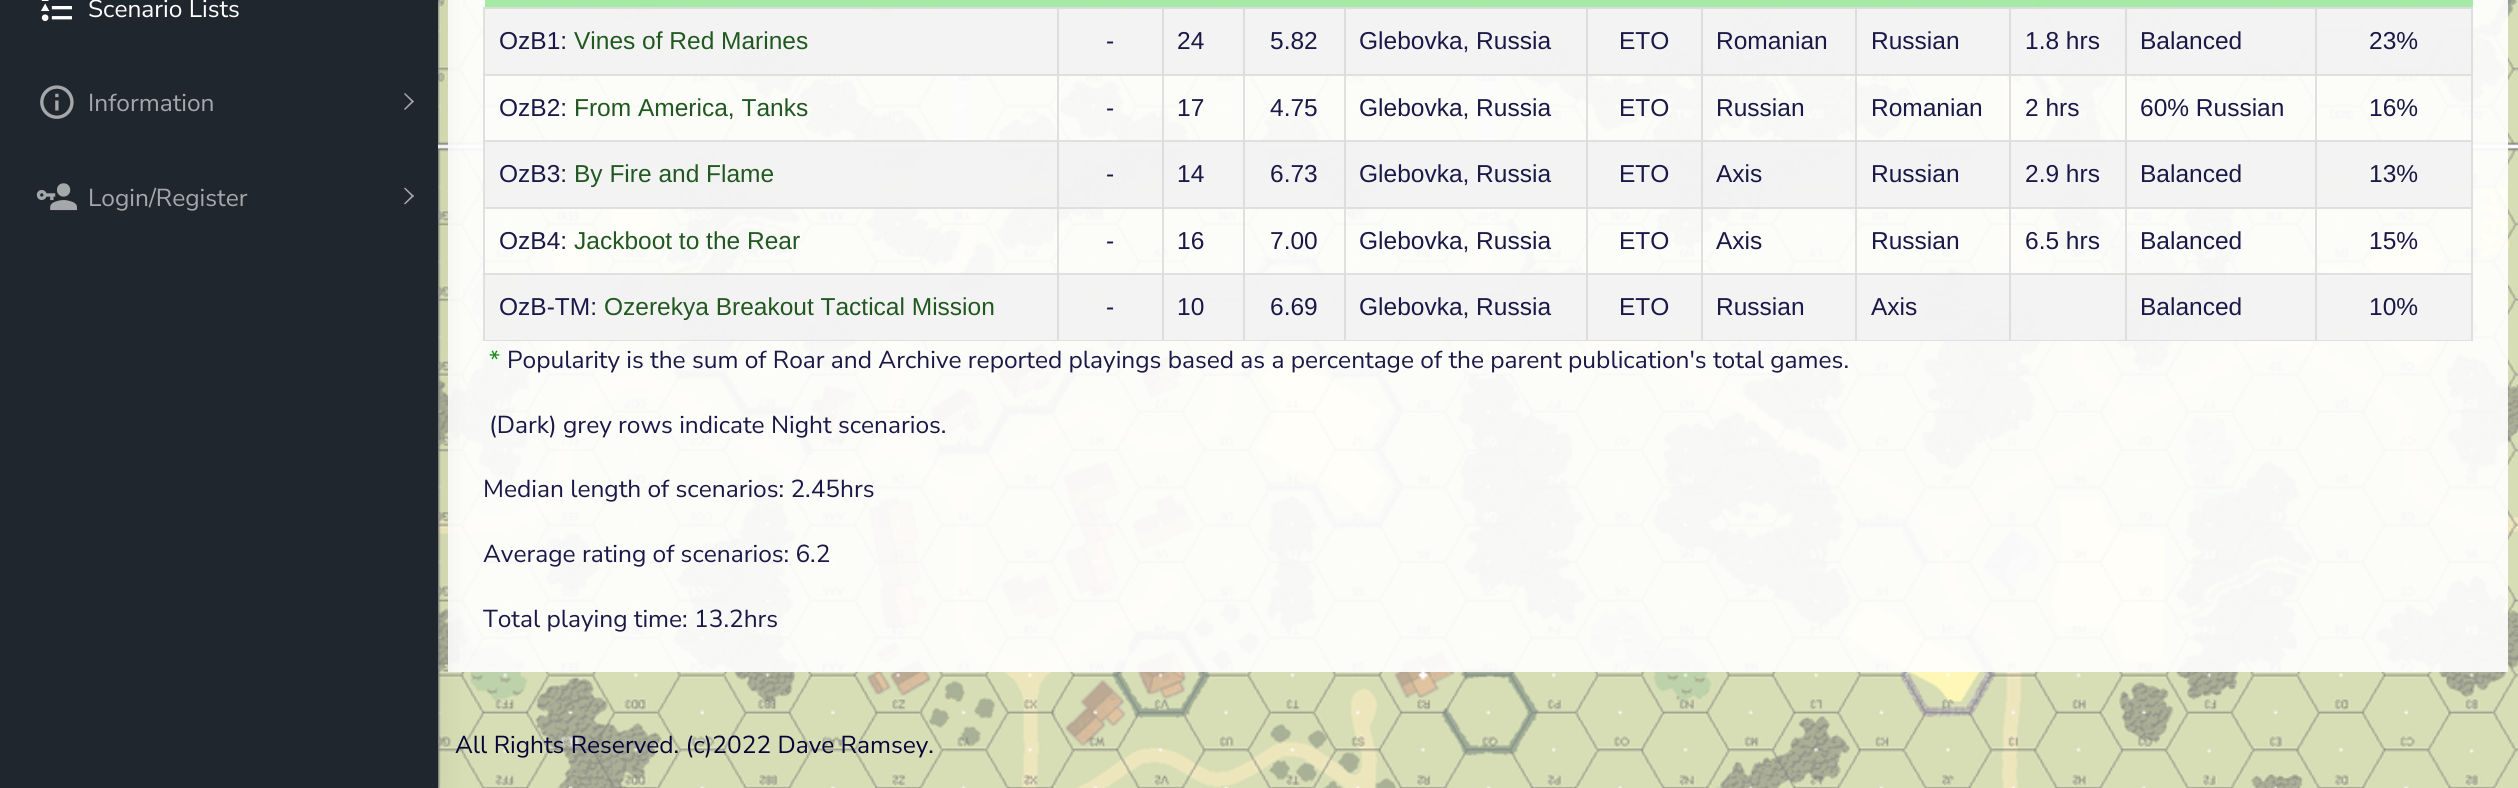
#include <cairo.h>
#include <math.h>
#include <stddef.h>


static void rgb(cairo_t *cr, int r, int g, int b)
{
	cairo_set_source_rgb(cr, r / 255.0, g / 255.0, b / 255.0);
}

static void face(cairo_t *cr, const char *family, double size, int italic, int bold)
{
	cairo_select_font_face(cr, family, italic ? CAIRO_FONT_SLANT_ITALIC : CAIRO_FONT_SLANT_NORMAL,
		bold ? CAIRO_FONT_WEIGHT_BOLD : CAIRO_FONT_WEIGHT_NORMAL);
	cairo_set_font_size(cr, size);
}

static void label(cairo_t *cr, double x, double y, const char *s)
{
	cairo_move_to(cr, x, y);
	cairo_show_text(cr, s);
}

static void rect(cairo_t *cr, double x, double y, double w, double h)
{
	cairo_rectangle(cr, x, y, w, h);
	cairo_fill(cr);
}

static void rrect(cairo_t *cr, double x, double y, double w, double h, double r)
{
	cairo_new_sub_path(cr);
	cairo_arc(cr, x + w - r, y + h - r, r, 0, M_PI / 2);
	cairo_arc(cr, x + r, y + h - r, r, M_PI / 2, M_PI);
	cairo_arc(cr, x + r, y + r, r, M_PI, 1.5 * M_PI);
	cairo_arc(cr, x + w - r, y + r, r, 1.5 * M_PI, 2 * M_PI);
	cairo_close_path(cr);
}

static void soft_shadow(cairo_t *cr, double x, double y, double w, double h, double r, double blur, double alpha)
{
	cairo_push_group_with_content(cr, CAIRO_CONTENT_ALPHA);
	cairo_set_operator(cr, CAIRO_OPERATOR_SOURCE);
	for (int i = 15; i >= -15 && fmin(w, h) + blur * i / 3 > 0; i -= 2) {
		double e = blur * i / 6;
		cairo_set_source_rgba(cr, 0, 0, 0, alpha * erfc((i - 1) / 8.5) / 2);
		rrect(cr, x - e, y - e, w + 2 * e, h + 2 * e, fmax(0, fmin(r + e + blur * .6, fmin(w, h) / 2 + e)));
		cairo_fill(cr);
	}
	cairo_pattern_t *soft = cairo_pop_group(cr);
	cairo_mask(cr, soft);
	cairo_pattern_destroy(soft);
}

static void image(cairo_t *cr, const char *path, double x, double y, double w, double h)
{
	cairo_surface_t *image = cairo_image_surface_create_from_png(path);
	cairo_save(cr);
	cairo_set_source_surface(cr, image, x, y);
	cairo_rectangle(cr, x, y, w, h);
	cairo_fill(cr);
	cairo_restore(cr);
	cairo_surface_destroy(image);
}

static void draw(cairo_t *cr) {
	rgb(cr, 255, 255, 255);
	cairo_paint(cr);
	image(cr, "image3.png", 438, 0, 2080, 788);
	cairo_set_source_rgba(cr, 1, 1, 1, 0.92);
	rect(cr, 448, 0, 2060, 672);
	cairo_set_source_rgba(cr, 0.616, 0.914, 0.627, 0.92);
	rect(cr, 485, 0, 574, 9);
	cairo_set_source_rgba(cr, 0.949, 0.949, 0.949, 0.92);
	rect(cr, 485, 9, 1988, 66);
	cairo_set_source_rgba(cr, 0.616, 0.914, 0.627, 0.92);
	rect(cr, 1059, 0, 103, 9);
	rect(cr, 1162, 0, 82, 9);
	rect(cr, 1244, 0, 100, 9);
	rect(cr, 1344, 0, 243, 9);
	rect(cr, 1587, 0, 114, 9);
	rect(cr, 1701, 0, 154, 9);
	rect(cr, 1855, 0, 156, 9);
	rect(cr, 2011, 0, 114, 9);
	rect(cr, 2125, 0, 190, 9);
	rgb(cr, 216, 222, 217);
	rect(cr, 2315, 7, 158, 2);
	cairo_set_source_rgba(cr, 0.867, 0.867, 0.867, 0.92);
	rect(cr, 2125, 7, 192, 2);
	rect(cr, 2009, 7, 117, 2);
	rect(cr, 1855, 7, 156, 2);
	rect(cr, 1701, 7, 156, 2);
	rect(cr, 1586, 7, 117, 2);
	rect(cr, 1344, 7, 243, 2);
	rect(cr, 1243, 7, 103, 2);
	rect(cr, 1162, 7, 82, 2);
	rect(cr, 1057, 7, 107, 2);
	rect(cr, 483, 7, 576, 2);
	rect(cr, 2315, 74, 158, 2);
	rect(cr, 2315, 140, 158, 2);
	rect(cr, 2125, 140, 192, 2);
	cairo_set_source_rgba(cr, 0.949, 0.949, 0.949, 0.92);
	rect(cr, 485, 142, 1988, 66);
	cairo_set_source_rgba(cr, 0.867, 0.867, 0.867, 0.92);
	rect(cr, 2315, 207, 158, 2);
	rect(cr, 2315, 273, 158, 2);
	rect(cr, 2125, 273, 192, 2);
	cairo_set_source_rgba(cr, 0.949, 0.949, 0.949, 0.92);
	rect(cr, 485, 275, 1988, 66);
	cairo_set_source_rgba(cr, 0.867, 0.867, 0.867, 0.92);
	rect(cr, 2471, 273, 2, 68);
	rect(cr, 2315, 340, 158, 1);
	rgb(cr, 221, 221, 221);
	rect(cr, 2315, 273, 2, 68);
	cairo_set_source_rgba(cr, 0.867, 0.867, 0.867, 0.92);
	rect(cr, 2315, 207, 2, 68);
	rect(cr, 2125, 207, 192, 2);
	rgb(cr, 221, 221, 221);
	rect(cr, 2315, 140, 2, 68);
	cairo_set_source_rgba(cr, 0.867, 0.867, 0.867, 0.92);
	rect(cr, 2315, 74, 2, 68);
	rect(cr, 2125, 74, 192, 2);
	rect(cr, 2009, 140, 117, 2);
	rect(cr, 2009, 273, 117, 2);
	rect(cr, 2125, 340, 192, 1);
	rgb(cr, 221, 221, 221);
	rect(cr, 2125, 273, 2, 68);
	cairo_set_source_rgba(cr, 0.867, 0.867, 0.867, 0.92);
	rect(cr, 2125, 207, 2, 68);
	rect(cr, 2009, 207, 117, 2);
	rgb(cr, 221, 221, 221);
	rect(cr, 2125, 140, 2, 68);
	cairo_set_source_rgba(cr, 0.867, 0.867, 0.867, 0.92);
	rect(cr, 2125, 74, 2, 68);
	rect(cr, 2009, 74, 117, 2);
	rect(cr, 1855, 140, 156, 2);
	rect(cr, 1855, 273, 156, 2);
	rect(cr, 2009, 340, 117, 1);
	rgb(cr, 221, 221, 221);
	rect(cr, 2009, 273, 2, 68);
	cairo_set_source_rgba(cr, 0.867, 0.867, 0.867, 0.92);
	rect(cr, 2009, 207, 2, 68);
	rect(cr, 1855, 207, 156, 2);
	rgb(cr, 221, 221, 221);
	rect(cr, 2009, 140, 2, 68);
	cairo_set_source_rgba(cr, 0.867, 0.867, 0.867, 0.92);
	rect(cr, 2009, 74, 2, 68);
	rect(cr, 1855, 74, 156, 2);
	rect(cr, 1701, 140, 156, 2);
	rect(cr, 1701, 273, 156, 2);
	rect(cr, 1855, 340, 156, 1);
	rgb(cr, 221, 221, 221);
	rect(cr, 1855, 273, 2, 68);
	cairo_set_source_rgba(cr, 0.867, 0.867, 0.867, 0.92);
	rect(cr, 1855, 207, 2, 68);
	rect(cr, 1701, 207, 156, 2);
	rgb(cr, 221, 221, 221);
	rect(cr, 1855, 140, 2, 68);
	cairo_set_source_rgba(cr, 0.867, 0.867, 0.867, 0.92);
	rect(cr, 1855, 74, 2, 68);
	rect(cr, 1701, 74, 156, 2);
	rect(cr, 1586, 74, 117, 2);
	rect(cr, 1586, 140, 117, 2);
	rect(cr, 1344, 140, 243, 2);
	rect(cr, 1586, 273, 117, 2);
	rect(cr, 1701, 340, 156, 1);
	rgb(cr, 221, 221, 221);
	rect(cr, 1701, 273, 2, 68);
	cairo_set_source_rgba(cr, 0.867, 0.867, 0.867, 0.92);
	rect(cr, 1701, 207, 2, 68);
	rect(cr, 1586, 207, 117, 2);
	rect(cr, 1344, 273, 243, 2);
	rect(cr, 1586, 340, 117, 1);
	rgb(cr, 221, 221, 221);
	rect(cr, 1586, 273, 2, 68);
	cairo_set_source_rgba(cr, 0.867, 0.867, 0.867, 0.92);
	rect(cr, 1586, 207, 2, 68);
	rect(cr, 1344, 207, 243, 2);
	rgb(cr, 221, 221, 221);
	rect(cr, 1586, 140, 2, 68);
	cairo_set_source_rgba(cr, 0.867, 0.867, 0.867, 0.92);
	rect(cr, 1586, 74, 2, 68);
	rect(cr, 1344, 74, 243, 2);
	rect(cr, 1243, 140, 103, 2);
	rect(cr, 1243, 273, 103, 2);
	rect(cr, 1344, 340, 243, 1);
	rgb(cr, 221, 221, 221);
	rect(cr, 1344, 273, 2, 68);
	cairo_set_source_rgba(cr, 0.867, 0.867, 0.867, 0.92);
	rect(cr, 1344, 207, 2, 68);
	rect(cr, 1243, 207, 103, 2);
	rgb(cr, 221, 221, 221);
	rect(cr, 1344, 140, 2, 68);
	cairo_set_source_rgba(cr, 0.867, 0.867, 0.867, 0.92);
	rect(cr, 1344, 74, 2, 68);
	rect(cr, 1243, 74, 103, 2);
	rect(cr, 1162, 140, 82, 2);
	rect(cr, 1162, 273, 82, 2);
	rect(cr, 1243, 340, 103, 1);
	rgb(cr, 221, 221, 221);
	rect(cr, 1243, 273, 2, 68);
	cairo_set_source_rgba(cr, 0.867, 0.867, 0.867, 0.92);
	rect(cr, 1243, 207, 2, 68);
	rect(cr, 1162, 207, 82, 2);
	rgb(cr, 221, 221, 221);
	rect(cr, 1243, 140, 2, 68);
	cairo_set_source_rgba(cr, 0.867, 0.867, 0.867, 0.92);
	rect(cr, 1243, 74, 2, 68);
	rect(cr, 1162, 74, 82, 2);
	rect(cr, 1057, 140, 107, 2);
	rect(cr, 1057, 273, 107, 2);
	rect(cr, 1162, 340, 82, 1);
	rgb(cr, 221, 221, 221);
	rect(cr, 1162, 273, 2, 68);
	cairo_set_source_rgba(cr, 0.867, 0.867, 0.867, 0.92);
	rect(cr, 1162, 207, 2, 68);
	rect(cr, 1057, 207, 107, 2);
	rgb(cr, 221, 221, 221);
	rect(cr, 1162, 140, 2, 68);
	cairo_set_source_rgba(cr, 0.867, 0.867, 0.867, 0.92);
	rect(cr, 1162, 74, 2, 68);
	rect(cr, 1057, 74, 107, 2);
	rect(cr, 483, 140, 576, 2);
	rect(cr, 483, 273, 576, 2);
	rect(cr, 1057, 340, 107, 1);
	rgb(cr, 221, 221, 221);
	rect(cr, 1057, 273, 2, 68);
	cairo_set_source_rgba(cr, 0.867, 0.867, 0.867, 0.92);
	rect(cr, 1057, 207, 2, 68);
	rect(cr, 483, 207, 576, 2);
	rgb(cr, 221, 221, 221);
	rect(cr, 1057, 140, 2, 68);
	cairo_set_source_rgba(cr, 0.867, 0.867, 0.867, 0.92);
	rect(cr, 1057, 74, 2, 68);
	rect(cr, 483, 74, 576, 2);
	rect(cr, 483, 340, 576, 1);
	rect(cr, 483, 273, 2, 68);
	rect(cr, 483, 207, 2, 68);
	rect(cr, 483, 140, 2, 68);
	rect(cr, 483, 74, 2, 68);
	rect(cr, 483, 7, 2, 68);
	rgb(cr, 0, 0, 0);
	soft_shadow(cr, 2, -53, 437, 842, 0, 17.5, 0.08);
	rgb(cr, 31, 38, 45);
	rect(cr, 0, 0, 438, 788);
	image(cr, "image0.png", 41, 0, 31, 22);
	face(cr, "Nunito Sans", 24.5, 0, 0);
	rgb(cr, 255, 255, 255);
	label(cr, 88, 17, "Scenario Lists");
	image(cr, "image1.png", 40, 85, 34, 34);
	rgb(cr, 165, 168, 171);
	label(cr, 88, 111, "Information");
	cairo_new_path(cr);
	cairo_move_to(cr, 414, 101.5);
	cairo_line_to(cr, 405, 110);
	cairo_line_to(cr, 404, 109);
	cairo_line_to(cr, 412.5, 100.5);
	cairo_close_path(cr);
	cairo_fill(cr);
	cairo_new_path(cr);
	cairo_move_to(cr, 414, 101.5);
	cairo_line_to(cr, 412.5, 102.5);
	cairo_line_to(cr, 404, 94);
	cairo_line_to(cr, 405, 93);
	cairo_close_path(cr);
	cairo_fill(cr);
	image(cr, "image2.png", 36, 183, 41, 28);
	label(cr, 88, 206, "Login/Register");
	cairo_new_path(cr);
	cairo_move_to(cr, 414, 196);
	cairo_line_to(cr, 405, 204.5);
	cairo_line_to(cr, 404, 203.5);
	cairo_line_to(cr, 412.5, 195);
	cairo_close_path(cr);
	cairo_fill(cr);
	cairo_new_path(cr);
	cairo_move_to(cr, 414, 196);
	cairo_line_to(cr, 412.5, 197);
	cairo_line_to(cr, 404, 188.5);
	cairo_line_to(cr, 405, 187.5);
	cairo_close_path(cr);
	cairo_fill(cr);
	cairo_set_source_rgba(cr, 0.616, 0.914, 0.627, 0.92);
	rect(cr, 2315, 0, 158, 7);
	rgb(cr, 221, 221, 221);
	rect(cr, 1057, 7, 2, 68);
	face(cr, "Liberation Sans", 24.5, 0, 0);
	rgb(cr, 27, 24, 71);
	label(cr, 499, 49, "OzB1:");
	rgb(cr, 33, 88, 32);
	label(cr, 574, 49, "Vines of Red Marines");
	rgb(cr, 221, 221, 221);
	rect(cr, 1162, 7, 2, 68);
	rgb(cr, 27, 24, 71);
	label(cr, 1106, 49, "-");
	rgb(cr, 221, 221, 221);
	rect(cr, 1243, 7, 2, 68);
	rgb(cr, 27, 24, 71);
	label(cr, 1177, 49, "24");
	rgb(cr, 221, 221, 221);
	rect(cr, 1344, 7, 2, 68);
	rgb(cr, 27, 24, 71);
	label(cr, 1270, 49, "5.82");
	rgb(cr, 221, 221, 221);
	rect(cr, 1586, 7, 2, 68);
	rgb(cr, 27, 24, 71);
	label(cr, 1359, 49, "Glebovka, Russia");
	rgb(cr, 221, 221, 221);
	rect(cr, 1701, 140, 2, 68);
	rect(cr, 1701, 74, 2, 68);
	rect(cr, 1701, 7, 2, 68);
	rgb(cr, 27, 24, 71);
	label(cr, 1619, 49, "ETO");
	rgb(cr, 221, 221, 221);
	rect(cr, 1855, 7, 2, 68);
	rgb(cr, 27, 24, 71);
	label(cr, 1716, 49, "Romanian");
	rgb(cr, 221, 221, 221);
	rect(cr, 2009, 7, 2, 68);
	rgb(cr, 27, 24, 71);
	label(cr, 1871, 49, "Russian");
	rgb(cr, 221, 221, 221);
	rect(cr, 2125, 7, 2, 68);
	rgb(cr, 27, 24, 71);
	label(cr, 2025, 49, "1.8 hrs");
	rgb(cr, 221, 221, 221);
	rect(cr, 2315, 7, 2, 68);
	rgb(cr, 27, 24, 71);
	label(cr, 2140, 49, "Balanced");
	cairo_set_source_rgba(cr, 0.867, 0.867, 0.867, 0.92);
	rect(cr, 2471, 207, 2, 68);
	rect(cr, 2471, 140, 2, 68);
	rect(cr, 2471, 74, 2, 68);
	rect(cr, 2471, 7, 2, 68);
	rgb(cr, 27, 24, 71);
	label(cr, 2369, 49, "23%");
	label(cr, 499, 116, "OzB2:");
	rgb(cr, 33, 88, 32);
	label(cr, 574, 116, "From America, Tanks");
	rgb(cr, 27, 24, 71);
	label(cr, 1106, 116, "-");
	label(cr, 1177, 116, "17");
	label(cr, 1270, 116, "4.75");
	label(cr, 1359, 116, "Glebovka, Russia");
	label(cr, 1619, 116, "ETO");
	label(cr, 1716, 116, "Russian");
	label(cr, 1871, 116, "Romanian");
	label(cr, 2025, 116, "2 hrs");
	label(cr, 2140, 116, "60% Russian");
	label(cr, 2369, 116, "16%");
	label(cr, 499, 182, "OzB3:");
	rgb(cr, 33, 88, 32);
	label(cr, 574, 182, "By Fire and Flame");
	rgb(cr, 27, 24, 71);
	label(cr, 1106, 182, "-");
	label(cr, 1177, 182, "14");
	label(cr, 1270, 182, "6.73");
	label(cr, 1359, 182, "Glebovka, Russia");
	label(cr, 1619, 182, "ETO");
	label(cr, 1716, 182, "Axis");
	label(cr, 1871, 182, "Russian");
	label(cr, 2025, 182, "2.9 hrs");
	label(cr, 2140, 182, "Balanced");
	label(cr, 2369, 182, "13%");
	label(cr, 499, 249, "OzB4:");
	rgb(cr, 33, 88, 32);
	label(cr, 574, 249, "Jackboot to the Rear");
	rgb(cr, 27, 24, 71);
	label(cr, 1106, 249, "-");
	label(cr, 1177, 249, "16");
	label(cr, 1270, 249, "7.00");
	label(cr, 1359, 249, "Glebovka, Russia");
	label(cr, 1619, 249, "ETO");
	label(cr, 1716, 249, "Axis");
	label(cr, 1871, 249, "Russian");
	label(cr, 2025, 249, "6.5 hrs");
	label(cr, 2140, 249, "Balanced");
	label(cr, 2369, 249, "15%");
	label(cr, 499, 315, "OzB-TM:");
	rgb(cr, 33, 88, 32);
	label(cr, 604, 315, "Ozerekya Breakout Tactical Mission");
	rgb(cr, 27, 24, 71);
	label(cr, 1106, 315, "-");
	label(cr, 1177, 315, "10");
	label(cr, 1270, 315, "6.69");
	label(cr, 1359, 315, "Glebovka, Russia");
	label(cr, 1619, 315, "ETO");
	label(cr, 1716, 315, "Russian");
	label(cr, 1871, 315, "Axis");
	label(cr, 2140, 315, "Balanced");
	label(cr, 2369, 315, "10%");
	face(cr, "Nunito Sans", 24.5, 0, 0);
	rgb(cr, 20, 138, 20);
	label(cr, 489, 368, "*");
	rgb(cr, 27, 24, 71);
	label(cr, 507, 368, "Popularity is the sum of Roar and Archive reported playings based as a percentage of the parent publication's total games.");
	label(cr, 489, 433, "(Dark) grey rows indicate Night scenarios.");
	label(cr, 483, 497, "Median length of scenarios: 2.45hrs");
	label(cr, 483, 562, "Average rating of scenarios: 6.2");
	label(cr, 483, 627, "Total playing time: 13.2hrs");
	rgb(cr, 7, 4, 56);
	label(cr, 455, 753, "All Rights Reserved. (c)2022 Dave Ramsey.");
}

int main(void) {
	cairo_surface_t *surface = cairo_image_surface_create(CAIRO_FORMAT_RGB24, 2518, 788);
	cairo_t *cr = cairo_create(surface);
	cairo_font_options_t *options = cairo_font_options_create();
	cairo_font_options_set_hint_metrics(options, CAIRO_HINT_METRICS_OFF);
	cairo_font_options_set_hint_style(options, CAIRO_HINT_STYLE_NONE);
	cairo_set_font_options(cr, options);
	cairo_set_miter_limit(cr, 4);
	draw(cr);
	cairo_surface_write_to_png(surface, "render.png");
	cairo_font_options_destroy(options);
	cairo_destroy(cr);
	cairo_surface_destroy(surface);
	return 0;
}
